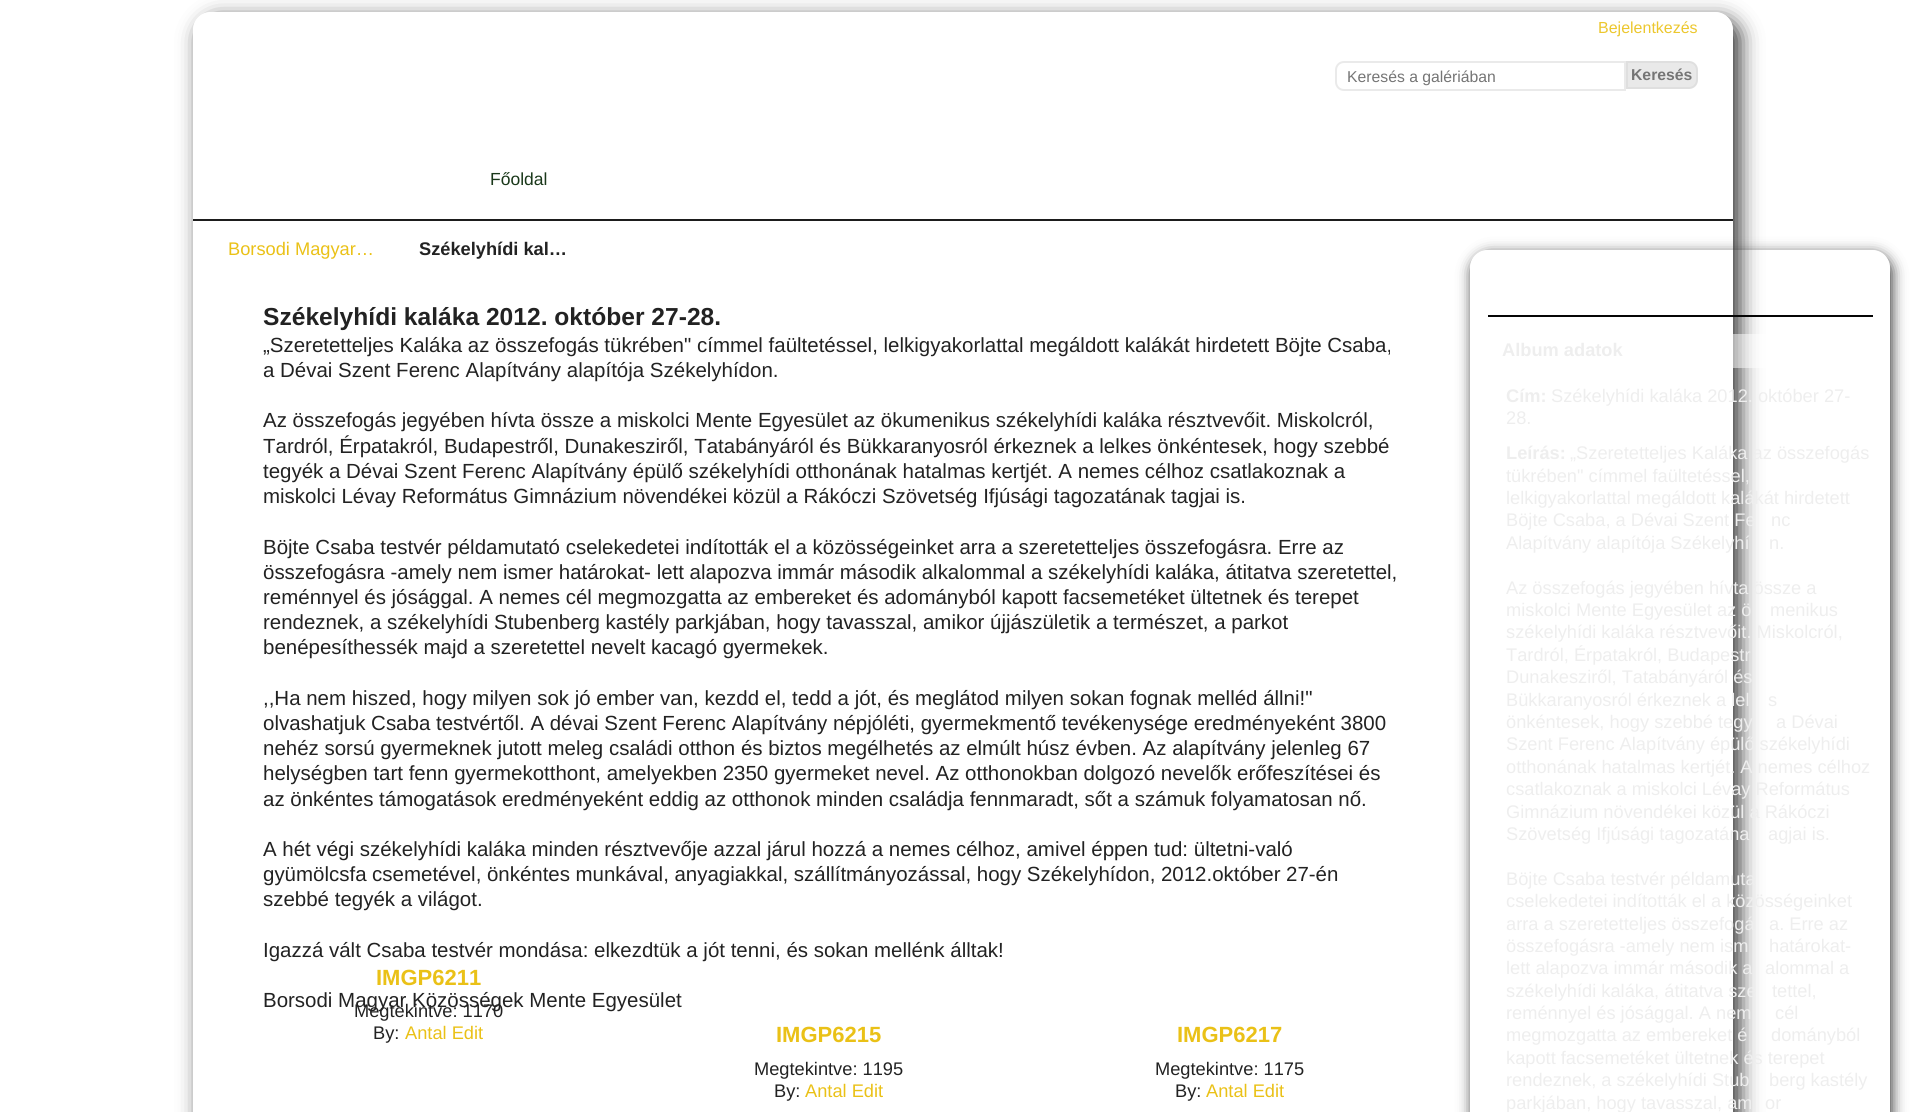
#include <cairo.h>
#include <math.h>
#include <stddef.h>


static void rgb(cairo_t *cr, int r, int g, int b)
{
	cairo_set_source_rgb(cr, r / 255.0, g / 255.0, b / 255.0);
}

static void face(cairo_t *cr, const char *family, double size, int italic, int bold)
{
	cairo_select_font_face(cr, family, italic ? CAIRO_FONT_SLANT_ITALIC : CAIRO_FONT_SLANT_NORMAL,
		bold ? CAIRO_FONT_WEIGHT_BOLD : CAIRO_FONT_WEIGHT_NORMAL);
	cairo_set_font_size(cr, size);
}

static void label(cairo_t *cr, double x, double y, const char *s)
{
	cairo_move_to(cr, x, y);
	cairo_show_text(cr, s);
}

static void tracked(cairo_t *cr, double x, double y, const char *s, double letter, double word)
{
	cairo_move_to(cr, x, y);
	while (*s) {
		char ch[5] = {0};
		int n = 0;
		do ch[n++] = *s++; while ((*s & 0xC0) == 0x80);
		cairo_show_text(cr, ch);
		cairo_rel_move_to(cr, letter + word * (*ch == ' '), 0);
	}
}

static void rect(cairo_t *cr, double x, double y, double w, double h)
{
	cairo_rectangle(cr, x, y, w, h);
	cairo_fill(cr);
}

static void rrect(cairo_t *cr, double x, double y, double w, double h, double r)
{
	cairo_new_sub_path(cr);
	cairo_arc(cr, x + w - r, y + h - r, r, 0, M_PI / 2);
	cairo_arc(cr, x + r, y + h - r, r, M_PI / 2, M_PI);
	cairo_arc(cr, x + r, y + r, r, M_PI, 1.5 * M_PI);
	cairo_arc(cr, x + w - r, y + r, r, 1.5 * M_PI, 2 * M_PI);
	cairo_close_path(cr);
}

static void soft_shadow(cairo_t *cr, double x, double y, double w, double h, double r, double blur, double alpha)
{
	cairo_push_group_with_content(cr, CAIRO_CONTENT_ALPHA);
	cairo_set_operator(cr, CAIRO_OPERATOR_SOURCE);
	for (int i = 15; i >= -15 && fmin(w, h) + blur * i / 3 > 0; i -= 2) {
		double e = blur * i / 6;
		cairo_set_source_rgba(cr, 0, 0, 0, alpha * erfc((i - 1) / 8.5) / 2);
		rrect(cr, x - e, y - e, w + 2 * e, h + 2 * e, fmax(0, fmin(r + e + blur * .6, fmin(w, h) / 2 + e)));
		cairo_fill(cr);
	}
	cairo_pattern_t *soft = cairo_pop_group(cr);
	cairo_mask(cr, soft);
	cairo_pattern_destroy(soft);
}

static void draw(cairo_t *cr) {
	rgb(cr, 255, 255, 255);
	cairo_paint(cr);
	cairo_save(cr);
	cairo_set_fill_rule(cr, CAIRO_FILL_RULE_EVEN_ODD);
	cairo_new_path(cr);
	cairo_move_to(cr, 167, 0);
	cairo_line_to(cr, 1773, 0);
	cairo_line_to(cr, 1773, 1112);
	cairo_line_to(cr, 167, 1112);
	cairo_close_path(cr);
	cairo_move_to(cr, 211, 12);
	cairo_line_to(cr, 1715, 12);
	cairo_curve_to(cr, 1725, 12, 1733, 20, 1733, 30);
	cairo_line_to(cr, 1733, 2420);
	cairo_curve_to(cr, 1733, 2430, 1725, 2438, 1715, 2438);
	cairo_line_to(cr, 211, 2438);
	cairo_curve_to(cr, 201, 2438, 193, 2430, 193, 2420);
	cairo_line_to(cr, 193, 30);
	cairo_curve_to(cr, 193, 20, 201, 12, 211, 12);
	cairo_close_path(cr);
	cairo_clip(cr);
	rgb(cr, 51, 51, 51);
	soft_shadow(cr, 200, 19, 1540, 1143, 18, 10.5, 1);
	cairo_restore(cr);
	cairo_set_source_rgba(cr, 0.02, 0.02, 0.02, 0.9);
	rect(cr, 193, 219, 1540, 2);
	face(cr, "Liberation Sans", 16, 0, 0);
	rgb(cr, 236, 199, 46);
	label(cr, 1598, 33, "Bejelentkezés");
	cairo_new_path(cr);
	cairo_move_to(cr, 1344, 62);
	cairo_line_to(cr, 1625, 62);
	cairo_line_to(cr, 1625, 90);
	cairo_line_to(cr, 1344, 90);
	cairo_curve_to(cr, 1339.5, 90, 1336, 86.5, 1336, 82);
	cairo_line_to(cr, 1336, 70);
	cairo_curve_to(cr, 1336, 65.5, 1339.5, 62, 1344, 62);
	cairo_close_path(cr);
	rgb(cr, 234, 234, 234);
	cairo_stroke(cr);
	face(cr, "Liberation Sans", 15.75, 0, 0);
	rgb(cr, 117, 117, 117);
	label(cr, 1347, 82, "Keresés a galériában");
	rgb(cr, 233, 233, 233);
	cairo_new_path(cr);
	cairo_move_to(cr, 1627, 62);
	cairo_line_to(cr, 1689, 62);
	cairo_curve_to(cr, 1693.5, 62, 1697, 65.5, 1697, 70);
	cairo_line_to(cr, 1697, 80);
	cairo_curve_to(cr, 1697, 84.5, 1693.5, 88, 1689, 88);
	cairo_line_to(cr, 1627, 88);
	cairo_close_path(cr);
	cairo_fill_preserve(cr);
	rgb(cr, 223, 223, 223);
	cairo_stroke(cr);
	face(cr, "Liberation Sans", 15.75, 0, 1);
	rgb(cr, 117, 117, 117);
	label(cr, 1631, 80, "Keresés");
	face(cr, "Liberation Sans", 17.5, 0, 0);
	rgb(cr, 26, 56, 26);
	label(cr, 490, 185, "Főoldal");
	face(cr, "Liberation Sans", 18.25, 0, 0);
	rgb(cr, 234, 193, 23);
	label(cr, 228, 255, "Borsodi Magyar…");
	face(cr, "Liberation Sans", 18.25, 0, 1);
	rgb(cr, 34, 34, 34);
	label(cr, 419, 255, "Székelyhídi kal…");
	face(cr, "Liberation Sans", 24.6, 0, 1);
	label(cr, 263, 325, "Székelyhídi kaláka 2012. október 27-28.");
	face(cr, "Liberation Sans", 20.47, 0, 0);
	label(cr, 263, 352, "„Szeretetteljes Kaláka az összefogás tükrében\" címmel faültetéssel, lelkigyakorlattal megáldott kalákát hirdetett Böjte Csaba,");
	label(cr, 263, 377, "a Dévai Szent Ferenc Alapítvány alapítója Székelyhídon.");
	label(cr, 263, 427, "Az összefogás jegyében hívta össze a miskolci Mente Egyesület az ökumenikus székelyhídi kaláka résztvevőit. Miskolcról,");
	label(cr, 263, 453, "Tardról, Érpatakról, Budapestről, Dunakesziről, Tatabányáról és Bükkaranyosról érkeznek a lelkes önkéntesek, hogy szebbé");
	label(cr, 263, 478, "tegyék a Dévai Szent Ferenc Alapítvány épülő székelyhídi otthonának hatalmas kertjét. A nemes célhoz csatlakoznak a");
	label(cr, 263, 503, "miskolci Lévay Református Gimnázium növendékei közül a Rákóczi Szövetség Ifjúsági tagozatának tagjai is.");
	label(cr, 263, 554, "Böjte Csaba testvér példamutató cselekedetei indították el a közösségeinket arra a szeretetteljes összefogásra. Erre az");
	label(cr, 263, 579, "összefogásra -amely nem ismer határokat- lett alapozva immár második alkalommal a székelyhídi kaláka, átitatva szeretettel,");
	label(cr, 263, 604, "reménnyel és jósággal. A nemes cél megmozgatta az embereket és adományból kapott facsemetéket ültetnek és terepet");
	label(cr, 263, 629, "rendeznek, a székelyhídi Stubenberg kastély parkjában, hogy tavasszal, amikor újjászületik a természet, a parkot");
	label(cr, 263, 654, "benépesíthessék majd a szeretettel nevelt kacagó gyermekek.");
	label(cr, 263, 705, ",,Ha nem hiszed, hogy milyen sok jó ember van, kezdd el, tedd a jót, és meglátod milyen sokan fognak melléd állni!\"");
	label(cr, 263, 730, "olvashatjuk Csaba testvértől. A dévai Szent Ferenc Alapítvány népjóléti, gyermekmentő tevékenysége eredményeként 3800");
	label(cr, 263, 755, "nehéz sorsú gyermeknek jutott meleg családi otthon és biztos megélhetés az elmúlt húsz évben. Az alapítvány jelenleg 67");
	label(cr, 263, 780, "helységben tart fenn gyermekotthont, amelyekben 2350 gyermeket nevel. Az otthonokban dolgozó nevelők erőfeszítései és");
	label(cr, 263, 806, "az önkéntes támogatások eredményeként eddig az otthonok minden családja fennmaradt, sőt a számuk folyamatosan nő.");
	label(cr, 263, 856, "A hét végi székelyhídi kaláka minden résztvevője azzal járul hozzá a nemes célhoz, amivel éppen tud: ültetni-való");
	tracked(cr, 263, 881, "gyümölcsfa csemetével, önkéntes munkával, anyagiakkal, szállítmányozással, hogy Székelyhídon, 2012.október 27-én", 0, -0.1);
	label(cr, 263, 906, "szebbé tegyék a világot.");
	label(cr, 263, 957, "Igazzá vált Csaba testvér mondása: elkezdtük a jót tenni, és sokan mellénk álltak!");
	label(cr, 263, 1007, "Borsodi Magyar Közösségek Mente Egyesület");
	face(cr, "Liberation Sans", 22, 0, 1);
	rgb(cr, 234, 193, 23);
	label(cr, 376, 985, "IMGP6211");
	face(cr, "Liberation Sans", 18.25, 0, 0);
	rgb(cr, 34, 34, 34);
	label(cr, 354, 1017, "Megtekintve: 1170");
	label(cr, 373, 1039, "By:");
	rgb(cr, 234, 193, 23);
	label(cr, 405, 1039, "Antal Edit");
	face(cr, "Liberation Sans", 22, 0, 1);
	label(cr, 776, 1042, "IMGP6215");
	face(cr, "Liberation Sans", 18.25, 0, 0);
	rgb(cr, 34, 34, 34);
	label(cr, 754, 1075, "Megtekintve: 1195");
	label(cr, 774, 1097, "By:");
	rgb(cr, 234, 193, 23);
	label(cr, 805, 1097, "Antal Edit");
	face(cr, "Liberation Sans", 22, 0, 1);
	label(cr, 1177, 1042, "IMGP6217");
	face(cr, "Liberation Sans", 18.25, 0, 0);
	rgb(cr, 34, 34, 34);
	label(cr, 1155, 1075, "Megtekintve: 1175");
	label(cr, 1175, 1097, "By:");
	rgb(cr, 234, 193, 23);
	label(cr, 1206, 1097, "Antal Edit");
	cairo_save(cr);
	cairo_set_fill_rule(cr, CAIRO_FILL_RULE_EVEN_ODD);
	cairo_new_path(cr);
	cairo_move_to(cr, 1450, 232);
	cairo_line_to(cr, 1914, 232);
	cairo_line_to(cr, 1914, 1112);
	cairo_line_to(cr, 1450, 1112);
	cairo_close_path(cr);
	cairo_move_to(cr, 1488, 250);
	cairo_line_to(cr, 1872, 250);
	cairo_curve_to(cr, 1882, 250, 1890, 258, 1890, 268);
	cairo_line_to(cr, 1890, 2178);
	cairo_curve_to(cr, 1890, 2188, 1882, 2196, 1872, 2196);
	cairo_line_to(cr, 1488, 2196);
	cairo_curve_to(cr, 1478, 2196, 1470, 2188, 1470, 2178);
	cairo_line_to(cr, 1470, 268);
	cairo_curve_to(cr, 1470, 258, 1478, 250, 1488, 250);
	cairo_close_path(cr);
	cairo_clip(cr);
	rgb(cr, 51, 51, 51);
	soft_shadow(cr, 1472, 254, 420, 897, 18, 7, 1);
	cairo_restore(cr);
	rgb(cr, 5, 5, 5);
	rect(cr, 1488, 315, 385, 2);
	cairo_set_source_rgba(cr, 1, 1, 1, 0.5);
	rrect(cr, 1488, 334, 385, 34, 9);
	cairo_fill(cr);
	face(cr, "Liberation Sans", 18.25, 0, 1);
	rgb(cr, 238, 238, 238);
	label(cr, 1502, 356, "Album adatok");
	label(cr, 1506, 402, "Cím:");
	face(cr, "Liberation Sans", 18.25, 0, 0);
	label(cr, 1551, 402, "Székelyhídi kaláka 2012. október 27-");
	label(cr, 1506, 424, "28.");
	face(cr, "Liberation Sans", 18.25, 0, 1);
	label(cr, 1506, 459, "Leírás:");
	face(cr, "Liberation Sans", 18.25, 0, 0);
	label(cr, 1570, 459, "„Szeretetteljes Kaláka az összefogás");
	label(cr, 1506, 482, "tükrében\" címmel faültetéssel,");
	label(cr, 1506, 504, "lelkigyakorlattal megáldott kalákát hirdetett");
	label(cr, 1506, 526, "Böjte Csaba, a Dévai Szent Fe");
	label(cr, 1771, 526, "nc");
	label(cr, 1506, 549, "Alapítvány alapítója Székelyhí");
	label(cr, 1769, 549, "n.");
	label(cr, 1506, 594, "Az összefogás jegyében hívta össze a");
	label(cr, 1506, 616, "miskolci Mente Egyesület az ö");
	label(cr, 1770, 616, "menikus");
	label(cr, 1506, 638, "székelyhídi kaláka résztvevőit. Miskolcról,");
	label(cr, 1506, 661, "Tardról, Érpatakról, Budapestr");
	label(cr, 1506, 683, "Dunakesziről, Tatabányáról és");
	label(cr, 1506, 706, "Bükkaranyosról érkeznek a lel");
	label(cr, 1768, 706, "s");
	label(cr, 1506, 728, "önkéntesek, hogy szebbé tegy");
	label(cr, 1776, 728, "a Dévai");
	label(cr, 1506, 750, "Szent Ferenc Alapítvány épülő székelyhídi");
	label(cr, 1506, 773, "otthonának hatalmas kertjét. A nemes célhoz");
	label(cr, 1506, 795, "csatlakoznak a miskolci Lévay Református");
	label(cr, 1506, 818, "Gimnázium növendékei közül a Rákóczi");
	label(cr, 1506, 840, "Szövetség Ifjúsági tagozatána");
	label(cr, 1768, 840, "agjai is.");
	label(cr, 1506, 885, "Böjte Csaba testvér példamuta");
	label(cr, 1506, 907, "cselekedetei indították el a közösségeinket");
	label(cr, 1506, 930, "arra a szeretetteljes összefogá");
	label(cr, 1769, 930, "a. Erre az");
	label(cr, 1506, 952, "összefogásra -amely nem ism");
	label(cr, 1769, 952, "határokat-");
	label(cr, 1506, 974, "lett alapozva immár második a");
	label(cr, 1765, 974, "alommal a");
	label(cr, 1506, 997, "székelyhídi kaláka, átitatva sze");
	label(cr, 1772, 997, "tettel,");
	label(cr, 1506, 1019, "reménnyel és jósággal. A nem");
	label(cr, 1775, 1019, "cél");
	label(cr, 1506, 1041, "megmozgatta az embereket é");
	label(cr, 1771, 1041, "dományból");
	label(cr, 1506, 1064, "kapott facsemetéket ültetnek és terepet");
	label(cr, 1506, 1086, "rendeznek, a székelyhídi Stub");
	label(cr, 1769, 1086, "berg kastély");
	label(cr, 1506, 1109, "parkjában, hogy tavasszal, am");
	label(cr, 1765, 1109, "or");
}

int main(void) {
	cairo_surface_t *surface = cairo_image_surface_create(CAIRO_FORMAT_RGB24, 1924, 1112);
	cairo_t *cr = cairo_create(surface);
	cairo_font_options_t *options = cairo_font_options_create();
	cairo_font_options_set_hint_metrics(options, CAIRO_HINT_METRICS_OFF);
	cairo_font_options_set_hint_style(options, CAIRO_HINT_STYLE_NONE);
	cairo_set_font_options(cr, options);
	cairo_set_miter_limit(cr, 4);
	draw(cr);
	cairo_surface_write_to_png(surface, "render.png");
	cairo_font_options_destroy(options);
	cairo_destroy(cr);
	cairo_surface_destroy(surface);
	return 0;
}
